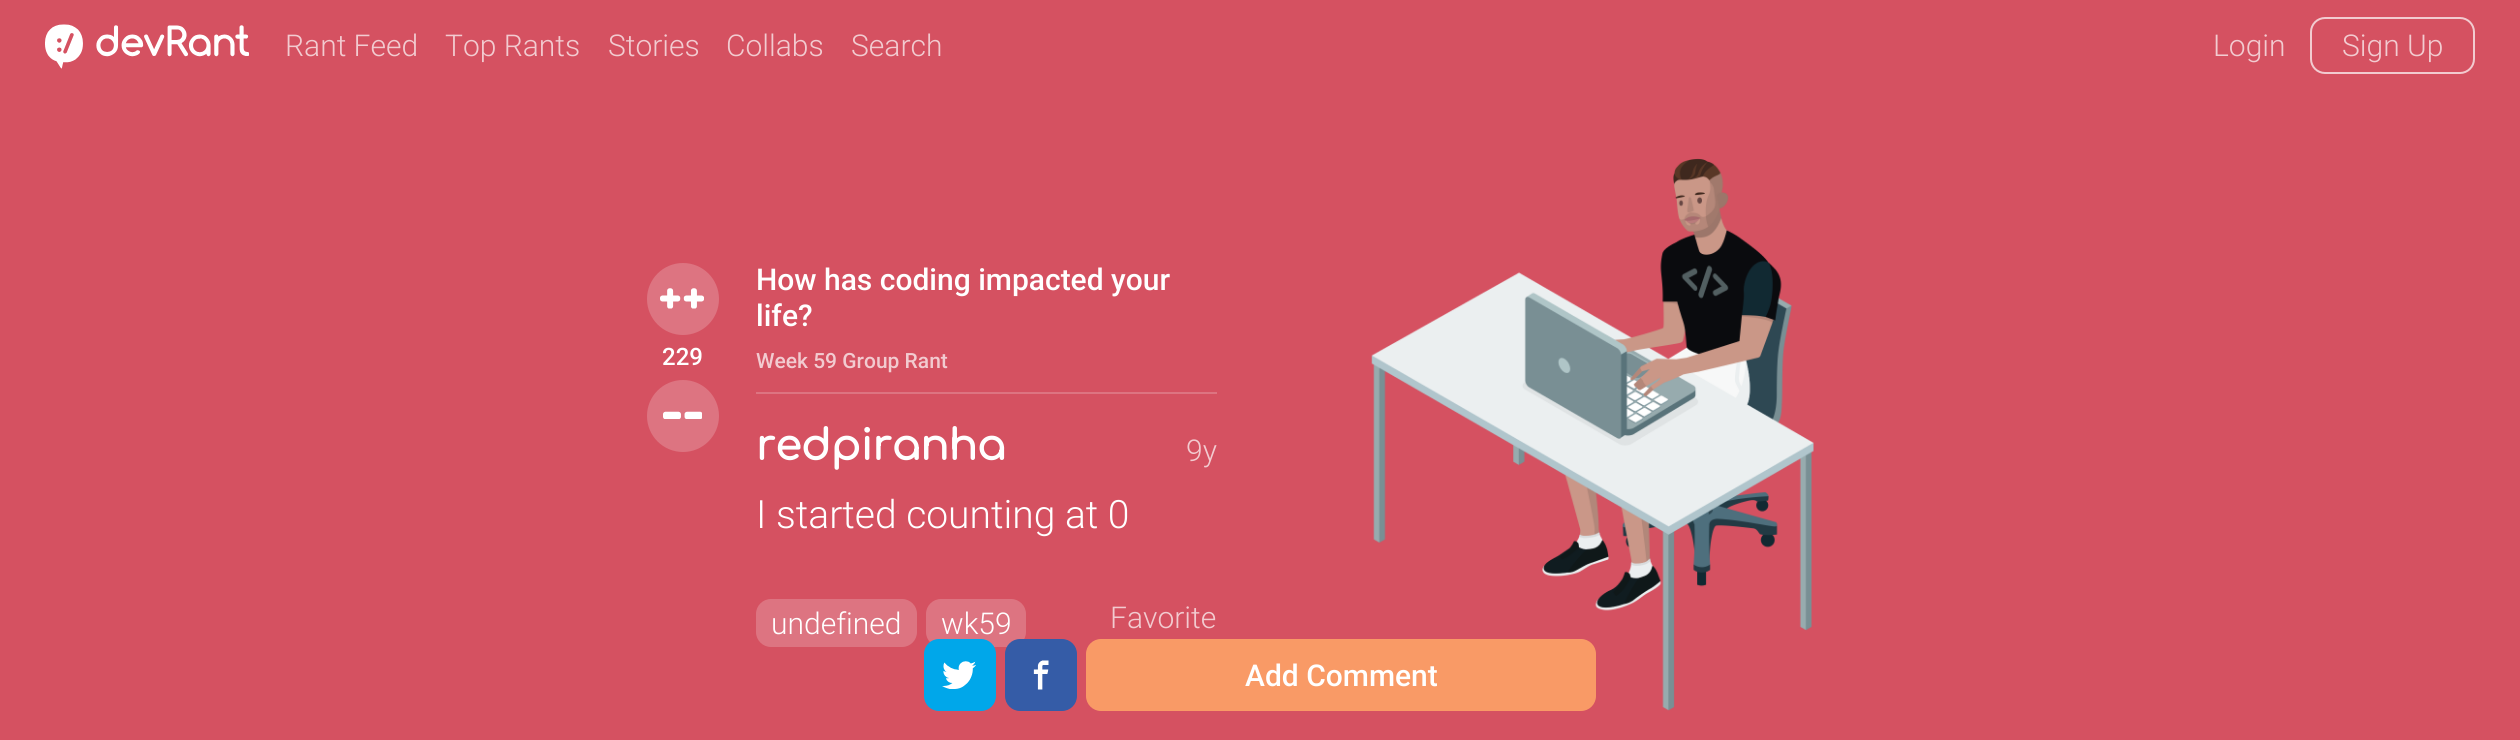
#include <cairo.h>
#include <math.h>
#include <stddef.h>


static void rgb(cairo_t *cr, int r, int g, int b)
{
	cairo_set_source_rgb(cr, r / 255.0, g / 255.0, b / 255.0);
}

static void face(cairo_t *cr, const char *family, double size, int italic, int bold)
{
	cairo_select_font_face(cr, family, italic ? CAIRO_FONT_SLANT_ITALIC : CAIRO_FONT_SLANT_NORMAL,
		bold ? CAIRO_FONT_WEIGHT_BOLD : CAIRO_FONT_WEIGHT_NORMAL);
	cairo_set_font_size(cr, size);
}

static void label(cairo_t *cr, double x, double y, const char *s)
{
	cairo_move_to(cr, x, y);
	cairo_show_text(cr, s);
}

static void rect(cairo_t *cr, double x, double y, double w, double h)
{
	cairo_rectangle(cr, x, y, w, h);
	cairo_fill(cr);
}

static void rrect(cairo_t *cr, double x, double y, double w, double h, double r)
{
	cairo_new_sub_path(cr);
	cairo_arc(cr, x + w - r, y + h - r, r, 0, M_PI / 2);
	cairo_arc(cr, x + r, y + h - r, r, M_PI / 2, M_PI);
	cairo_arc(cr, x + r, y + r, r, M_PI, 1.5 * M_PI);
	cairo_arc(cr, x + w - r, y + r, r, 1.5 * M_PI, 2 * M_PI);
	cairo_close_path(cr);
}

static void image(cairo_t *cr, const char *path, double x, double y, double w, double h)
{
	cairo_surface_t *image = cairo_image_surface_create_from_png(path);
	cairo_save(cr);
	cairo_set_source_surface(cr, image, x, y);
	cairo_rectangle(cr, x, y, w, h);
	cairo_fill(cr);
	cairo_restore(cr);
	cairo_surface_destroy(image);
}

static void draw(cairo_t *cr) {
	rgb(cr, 213, 81, 97);
	cairo_paint(cr);
	image(cr, "image0.png", 45, 24, 38, 45);
	image(cr, "image1.png", 96, 25, 153, 32);
	face(cr, "Roboto Light", 30, 0, 0);
	rgb(cr, 242, 203, 208);
	label(cr, 285, 56, "Rant Feed");
	label(cr, 445, 56, "Top Rants");
	label(cr, 608, 56, "Stories");
	label(cr, 726, 56, "Collabs");
	label(cr, 851, 56, "Search");
	label(cr, 2213, 56, "Login");
	rrect(cr, 2311, 18, 163, 55, 14);
	cairo_stroke(cr);
	label(cr, 2342, 56, "Sign Up");
	rgb(cr, 221, 116, 129);
	cairo_new_path(cr);
	cairo_arc(cr, 683, 299, 36, 0, 2 * M_PI);
	cairo_fill(cr);
	image(cr, "image2.png", 660, 288, 44, 21);
	face(cr, "Roboto Medium", 24, 0, 0);
	rgb(cr, 255, 255, 255);
	label(cr, 662, 365, "229");
	rgb(cr, 221, 116, 129);
	cairo_new_path(cr);
	cairo_arc(cr, 683, 416, 36, 0, 2 * M_PI);
	cairo_fill(cr);
	image(cr, "image3.png", 663, 411, 39, 8);
	rect(cr, 756, 392, 461, 2);
	face(cr, "Roboto Medium", 30, 0, 0);
	rgb(cr, 255, 255, 255);
	label(cr, 756, 290, "How has coding impacted your");
	label(cr, 756, 326, "life?");
	face(cr, "Roboto Medium", 21, 0, 0);
	rgb(cr, 242, 203, 208);
	label(cr, 756, 368, "Week 59 Group Rant");
	face(cr, "Comfortaa", 42, 0, 1);
	rgb(cr, 255, 255, 255);
	label(cr, 756, 460, "redpiranha");
	face(cr, "Roboto Light", 30, 0, 0);
	rgb(cr, 242, 203, 208);
	label(cr, 1186, 461, "9y");
	face(cr, "Roboto Light", 39, 0, 0);
	rgb(cr, 255, 255, 255);
	label(cr, 756, 528, "I started counting at 0");
	rgb(cr, 221, 116, 129);
	rrect(cr, 756, 599, 161, 48, 15);
	cairo_fill(cr);
	face(cr, "Roboto Light", 30, 0, 0);
	rgb(cr, 255, 255, 255);
	label(cr, 771, 634, "undefined");
	rgb(cr, 221, 116, 129);
	rrect(cr, 926, 599, 100, 48, 15);
	cairo_fill(cr);
	rgb(cr, 255, 255, 255);
	label(cr, 941, 634, "wk59");
	rgb(cr, 242, 203, 208);
	label(cr, 1110, 628, "Favorite");
	image(cr, "image4.png", 1371, 158, 443, 553);
	rgb(cr, 0, 167, 234);
	rrect(cr, 924, 639, 72, 72, 15);
	cairo_fill(cr);
	image(cr, "image5.png", 942, 661, 34, 28);
	rgb(cr, 53, 92, 167);
	rrect(cr, 1005, 639, 72, 72, 15);
	cairo_fill(cr);
	image(cr, "image6.png", 1033, 660, 16, 30);
	rgb(cr, 249, 154, 102);
	rrect(cr, 1086, 639, 510, 72, 15);
	cairo_fill(cr);
	face(cr, "Roboto Medium", 30, 0, 0);
	rgb(cr, 255, 255, 255);
	label(cr, 1245, 686, "Add Comment");
}

int main(void) {
	cairo_surface_t *surface = cairo_image_surface_create(CAIRO_FORMAT_RGB24, 2520, 740);
	cairo_t *cr = cairo_create(surface);
	cairo_font_options_t *options = cairo_font_options_create();
	cairo_font_options_set_hint_metrics(options, CAIRO_HINT_METRICS_OFF);
	cairo_font_options_set_hint_style(options, CAIRO_HINT_STYLE_NONE);
	cairo_set_font_options(cr, options);
	cairo_set_miter_limit(cr, 4);
	draw(cr);
	cairo_surface_write_to_png(surface, "render.png");
	cairo_font_options_destroy(options);
	cairo_destroy(cr);
	cairo_surface_destroy(surface);
	return 0;
}
